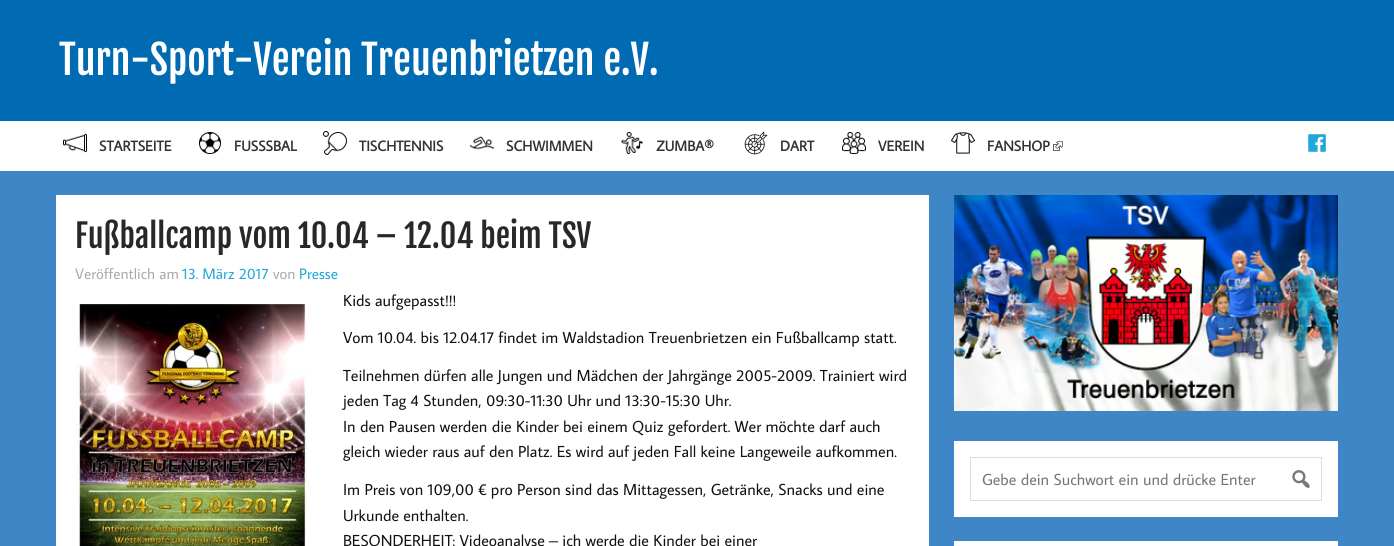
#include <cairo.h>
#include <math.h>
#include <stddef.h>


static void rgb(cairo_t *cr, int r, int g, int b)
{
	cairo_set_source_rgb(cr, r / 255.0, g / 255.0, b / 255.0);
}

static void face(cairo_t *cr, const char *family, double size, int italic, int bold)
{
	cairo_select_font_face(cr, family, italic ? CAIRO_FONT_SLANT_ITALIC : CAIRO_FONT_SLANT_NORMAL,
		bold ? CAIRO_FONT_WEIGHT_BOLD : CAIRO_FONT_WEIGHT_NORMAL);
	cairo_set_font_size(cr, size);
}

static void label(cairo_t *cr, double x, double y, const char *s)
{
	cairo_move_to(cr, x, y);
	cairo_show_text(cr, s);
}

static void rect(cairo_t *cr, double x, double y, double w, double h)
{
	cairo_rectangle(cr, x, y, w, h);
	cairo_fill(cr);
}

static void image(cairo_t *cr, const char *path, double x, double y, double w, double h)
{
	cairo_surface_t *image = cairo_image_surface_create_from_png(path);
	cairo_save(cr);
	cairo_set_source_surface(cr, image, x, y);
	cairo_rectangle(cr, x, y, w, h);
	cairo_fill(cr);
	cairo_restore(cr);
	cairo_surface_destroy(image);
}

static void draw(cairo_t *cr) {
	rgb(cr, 62, 134, 198);
	cairo_paint(cr);
	rgb(cr, 0, 106, 178);
	rect(cr, 0, 0, 1394, 121);
	face(cr, "Fjalla One", 40, 0, 0);
	rgb(cr, 255, 255, 255);
	label(cr, 59, 75, "Turn-Sport-Verein Treuenbrietzen e.V.");
	rect(cr, 0, 121, 1394, 50);
	image(cr, "image0.png", 63, 133, 24, 20);
	face(cr, "Average Sans", 14.5, 0, 1);
	rgb(cr, 51, 51, 51);
	label(cr, 99, 151, "STARTSEITE");
	image(cr, "image1.png", 199, 132, 22, 22);
	label(cr, 234, 151, "FUSSSBAL");
	image(cr, "image2.png", 323, 131, 24, 24);
	label(cr, 359, 151, "TISCHTENNIS");
	image(cr, "image3.png", 470, 136, 24, 14);
	label(cr, 506, 151, "SCHWIMMEN");
	image(cr, "image4.png", 621, 132, 22, 22);
	label(cr, 656, 151, "ZUMBA®");
	image(cr, "image5.png", 744, 131, 24, 24);
	label(cr, 780, 151, "DART");
	image(cr, "image6.png", 842, 132, 24, 22);
	label(cr, 878, 151, "VEREIN");
	image(cr, "image7.png", 951, 132, 24, 22);
	label(cr, 987, 151, "FANSHOP");
	image(cr, "image8.png", 1053, 141, 10, 10);
	image(cr, "image9.png", 1308, 134, 18, 18);
	rgb(cr, 255, 255, 255);
	rect(cr, 56, 195, 873, 351);
	face(cr, "Fjalla One", 32, 0, 0);
	rgb(cr, 40, 40, 40);
	label(cr, 75, 248, "Fußballcamp vom 10.04 – 12.04 beim TSV");
	face(cr, "Average Sans", 15.25, 0, 0);
	rgb(cr, 170, 170, 170);
	label(cr, 75, 279, "Veröffentlich am");
	rgb(cr, 34, 168, 216);
	label(cr, 182, 279, "13. März 2017");
	rgb(cr, 170, 170, 170);
	label(cr, 273, 279, "von");
	rgb(cr, 34, 168, 216);
	label(cr, 299, 279, "Presse");
	face(cr, "Average Sans", 16, 0, 0);
	rgb(cr, 17, 17, 17);
	label(cr, 343, 306, "Kids aufgepasst!!!");
	image(cr, "image10.png", 75, 304, 233, 242);
	label(cr, 343, 343, "Vom 10.04. bis 12.04.17 findet im Waldstadion Treuenbrietzen ein Fußballcamp statt.");
	label(cr, 343, 381, "Teilnehmen dürfen alle Jungen und Mädchen der Jahrgänge 2005-2009. Trainiert wird");
	label(cr, 343, 406, "jeden Tag 4 Stunden, 09:30-11:30 Uhr und 13:30-15:30 Uhr.");
	label(cr, 343, 432, "In den Pausen werden die Kinder bei einem Quiz gefordert. Wer möchte darf auch");
	label(cr, 343, 457, "gleich wieder raus auf den Platz. Es wird auf jeden Fall keine Langeweile aufkommen.");
	label(cr, 343, 495, "Im Preis von 109,00 € pro Person sind das Mittagessen, Getränke, Snacks und eine");
	label(cr, 343, 521, "Urkunde enthalten.");
	label(cr, 343, 546, "BESONDERHEIT: Videoanalyse – ich werde die Kinder bei einer");
	image(cr, "image11.png", 954, 195, 384, 216);
	rgb(cr, 255, 255, 255);
	rect(cr, 954, 441, 384, 76);
	cairo_rectangle(cr, 970.5, 457.5, 351, 43);
	rgb(cr, 221, 221, 221);
	cairo_set_line_width(cr, 1);
	cairo_stroke(cr);
	rgb(cr, 117, 117, 117);
	label(cr, 982, 485, "Gebe dein Suchwort ein und drücke Enter");
	image(cr, "image12.png", 1292, 470, 18, 18);
	rgb(cr, 255, 255, 255);
	rect(cr, 954, 541, 384, 5);
}

int main(void) {
	cairo_surface_t *surface = cairo_image_surface_create(CAIRO_FORMAT_RGB24, 1394, 546);
	cairo_t *cr = cairo_create(surface);
	cairo_font_options_t *options = cairo_font_options_create();
	cairo_font_options_set_hint_metrics(options, CAIRO_HINT_METRICS_OFF);
	cairo_font_options_set_hint_style(options, CAIRO_HINT_STYLE_NONE);
	cairo_set_font_options(cr, options);
	cairo_set_miter_limit(cr, 4);
	draw(cr);
	cairo_surface_write_to_png(surface, "render.png");
	cairo_font_options_destroy(options);
	cairo_destroy(cr);
	cairo_surface_destroy(surface);
	return 0;
}
